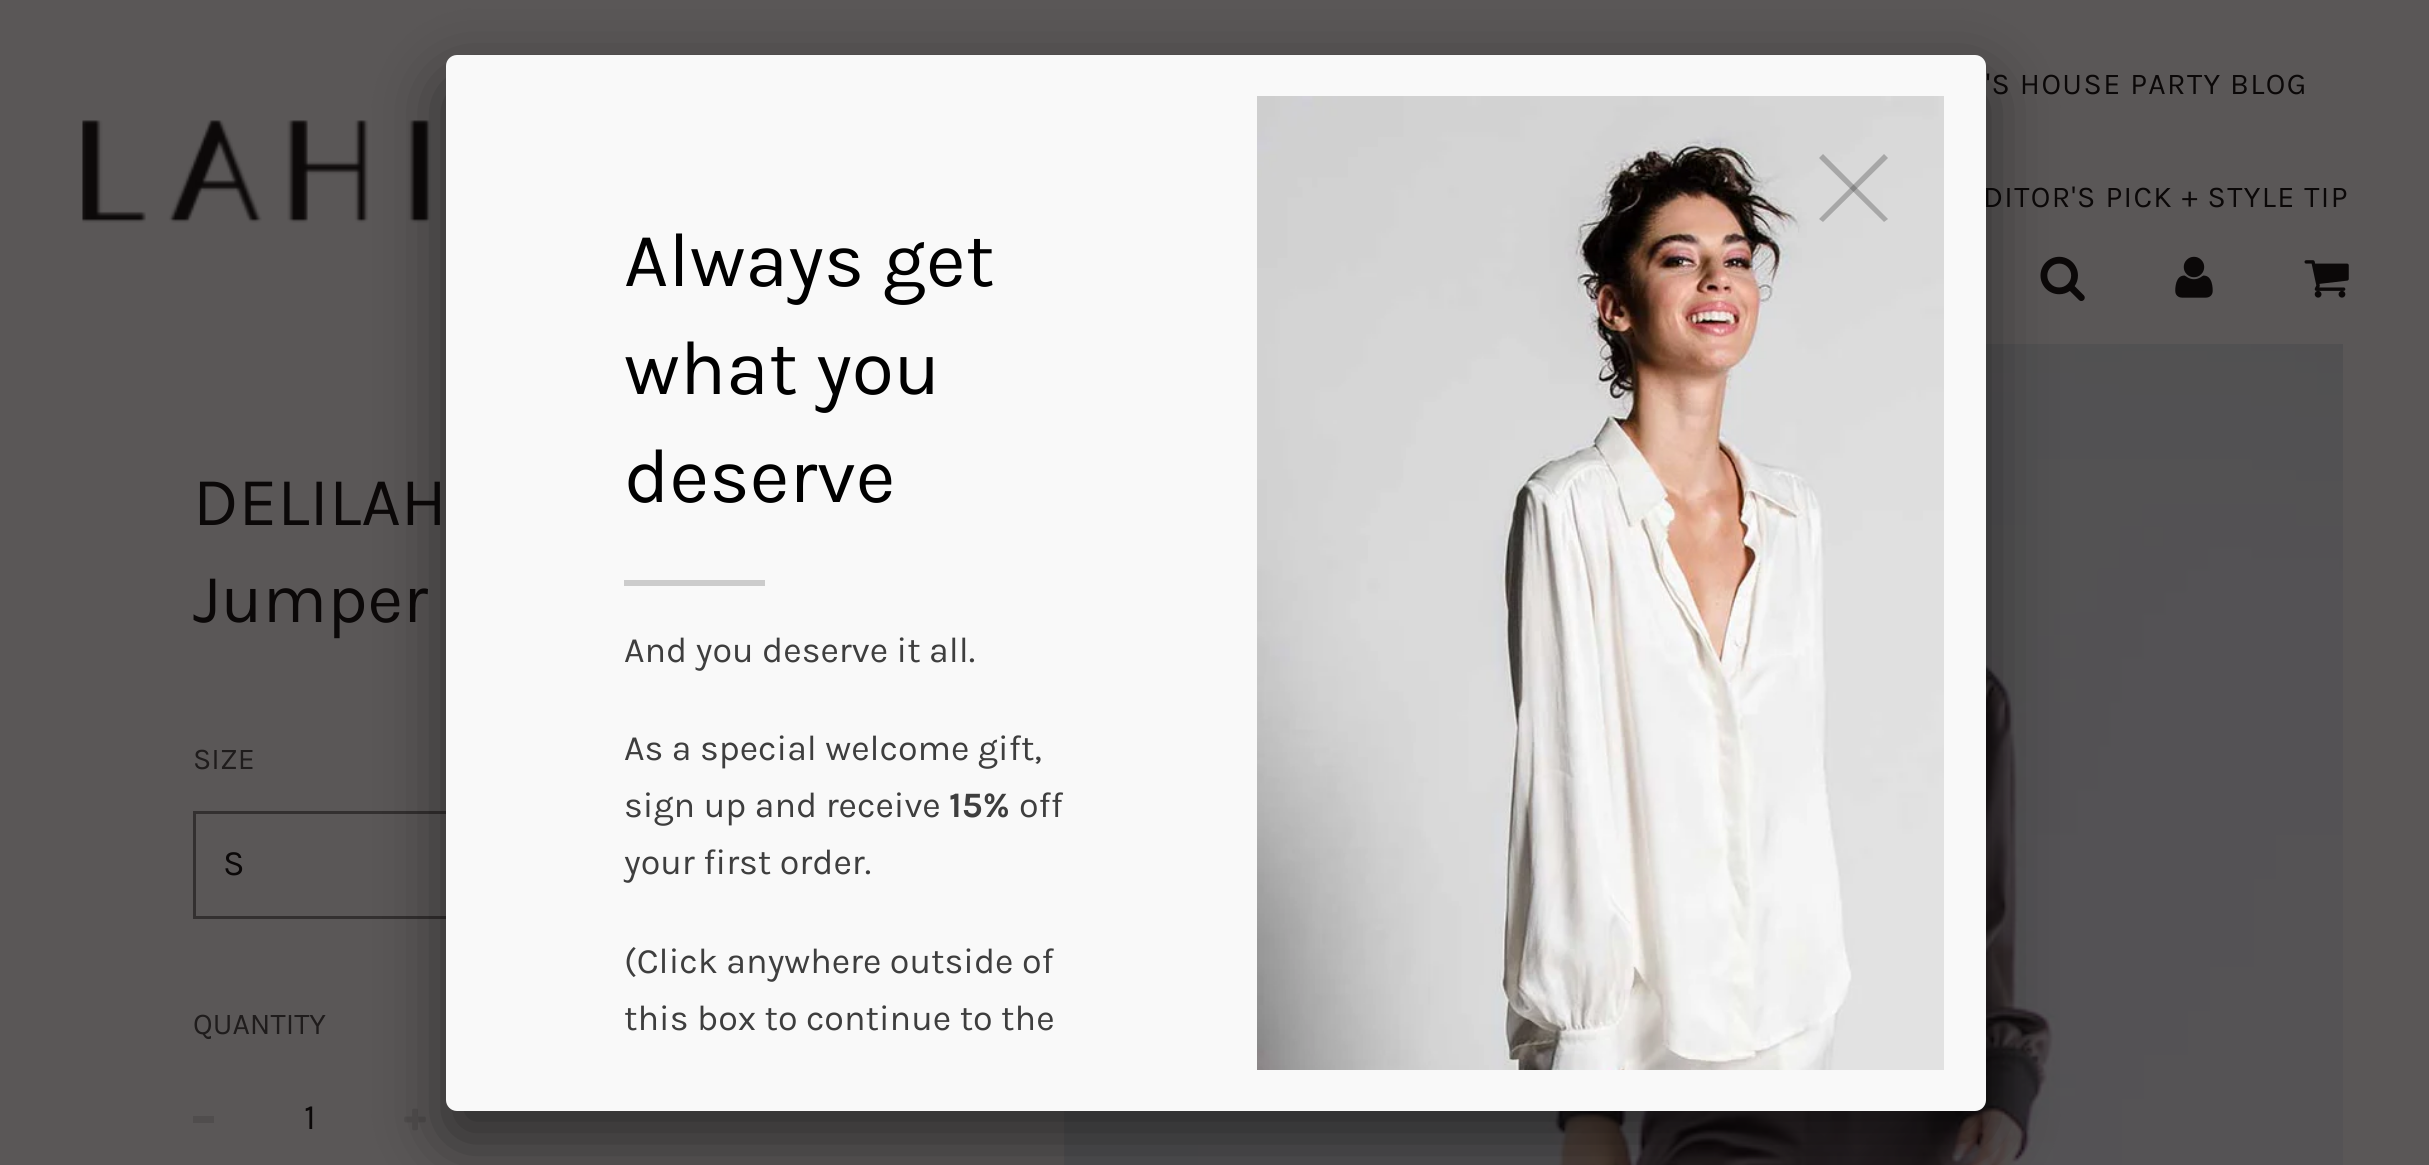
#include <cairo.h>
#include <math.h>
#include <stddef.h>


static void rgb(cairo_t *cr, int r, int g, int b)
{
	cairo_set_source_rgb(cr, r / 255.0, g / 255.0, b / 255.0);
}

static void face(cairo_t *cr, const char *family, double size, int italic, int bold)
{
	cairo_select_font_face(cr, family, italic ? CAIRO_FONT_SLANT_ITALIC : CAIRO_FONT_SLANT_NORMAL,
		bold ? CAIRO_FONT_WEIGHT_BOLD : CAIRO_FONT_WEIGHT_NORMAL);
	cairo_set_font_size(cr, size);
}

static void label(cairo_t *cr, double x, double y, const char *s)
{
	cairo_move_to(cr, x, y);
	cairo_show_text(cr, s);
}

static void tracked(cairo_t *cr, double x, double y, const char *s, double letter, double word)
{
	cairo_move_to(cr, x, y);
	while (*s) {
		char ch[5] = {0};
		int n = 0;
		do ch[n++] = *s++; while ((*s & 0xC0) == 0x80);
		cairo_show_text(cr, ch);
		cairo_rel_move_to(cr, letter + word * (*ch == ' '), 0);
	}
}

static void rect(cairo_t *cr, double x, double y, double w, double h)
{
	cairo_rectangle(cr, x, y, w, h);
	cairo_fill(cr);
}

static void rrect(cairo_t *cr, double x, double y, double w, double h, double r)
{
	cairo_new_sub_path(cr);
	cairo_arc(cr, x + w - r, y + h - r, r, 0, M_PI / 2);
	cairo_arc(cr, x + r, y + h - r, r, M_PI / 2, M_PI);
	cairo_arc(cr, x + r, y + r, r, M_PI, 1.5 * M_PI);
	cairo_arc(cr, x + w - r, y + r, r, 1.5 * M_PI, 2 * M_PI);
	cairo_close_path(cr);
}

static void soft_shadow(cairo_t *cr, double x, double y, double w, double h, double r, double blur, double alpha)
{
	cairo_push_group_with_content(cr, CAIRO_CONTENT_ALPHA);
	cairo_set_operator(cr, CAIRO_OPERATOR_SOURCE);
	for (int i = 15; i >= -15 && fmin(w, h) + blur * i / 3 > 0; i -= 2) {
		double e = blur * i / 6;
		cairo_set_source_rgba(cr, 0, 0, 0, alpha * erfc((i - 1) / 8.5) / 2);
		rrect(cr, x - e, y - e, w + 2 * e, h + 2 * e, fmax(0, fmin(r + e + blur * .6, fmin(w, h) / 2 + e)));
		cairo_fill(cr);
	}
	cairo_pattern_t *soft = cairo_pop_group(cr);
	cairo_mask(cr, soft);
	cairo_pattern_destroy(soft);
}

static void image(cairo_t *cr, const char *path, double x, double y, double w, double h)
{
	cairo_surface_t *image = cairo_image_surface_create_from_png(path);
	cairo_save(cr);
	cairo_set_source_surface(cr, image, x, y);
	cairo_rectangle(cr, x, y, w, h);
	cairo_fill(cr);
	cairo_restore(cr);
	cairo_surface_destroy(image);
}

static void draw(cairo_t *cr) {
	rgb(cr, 90, 87, 87);
	cairo_paint(cr);
	image(cr, "image0.png", 82, 120, 349, 103);
	face(cr, "Karla", 30.25, 0, 0);
	rgb(cr, 11, 8, 8);
	tracked(cr, 1986, 94, "'S HOUSE PARTY BLOG", 1.4, 0);
	tracked(cr, 1983, 207, "DITOR'S PICK + STYLE TIP", 1.4, 0);
	image(cr, "image1.png", 2040, 256, 45, 45);
	image(cr, "image2.png", 2175, 256, 38, 42);
	image(cr, "image3.png", 2304, 260, 45, 38);
	face(cr, "Karla", 69, 0, 0);
	label(cr, 193, 525, "DELILAH");
	label(cr, 193, 622, "Jumper");
	face(cr, "Karla", 30.25, 0, 0);
	rgb(cr, 31, 28, 28);
	label(cr, 193, 769, "SIZE");
	cairo_rectangle(cr, 194.5, 812.5, 470, 105);
	rgb(cr, 51, 48, 48);
	cairo_set_line_width(cr, 3);
	cairo_stroke(cr);
	face(cr, "Karla", 35.75, 0, 0);
	rgb(cr, 11, 8, 8);
	label(cr, 223, 875, "S");
	face(cr, "Karla", 30.25, 0, 0);
	rgb(cr, 31, 28, 28);
	label(cr, 193, 1034, "QUANTITY");
	rgb(cr, 80, 77, 77);
	rect(cr, 193, 1116, 21, 7);
	face(cr, "Karla", 35.75, 0, 0);
	rgb(cr, 11, 8, 8);
	label(cr, 304, 1129, "1");
	image(cr, "image4.png", 404, 1108, 22, 23);
	image(cr, "image5.png", 1064, 344, 1279, 821);
	rgb(cr, 0, 0, 0);
	soft_shadow(cr, 446, 83, 1540, 1056, 11, 34.5, 0.5);
	rgb(cr, 249, 249, 249);
	rrect(cr, 446, 55, 1540, 1056, 11);
	cairo_fill(cr);
	image(cr, "image6.png", 1257, 96, 687, 974);
	rgb(cr, 167, 167, 167);
	cairo_new_path(cr);
	cairo_move_to(cr, 1884, 154);
	cairo_line_to(cr, 1888, 158);
	cairo_line_to(cr, 1823, 222);
	cairo_line_to(cr, 1819, 219);
	cairo_close_path(cr);
	cairo_fill(cr);
	cairo_set_source_rgba(cr, 0.2, 0.2, 0.2, 0.3);
	cairo_new_path(cr);
	cairo_move_to(cr, 1819, 158);
	cairo_line_to(cr, 1823, 154);
	cairo_line_to(cr, 1888, 219);
	cairo_line_to(cr, 1884, 222);
	cairo_close_path(cr);
	cairo_fill(cr);
	face(cr, "Karla", 77, 0, 0);
	rgb(cr, 0, 0, 0);
	label(cr, 624, 286, "Always get");
	label(cr, 624, 394, "what you");
	label(cr, 624, 502, "deserve");
	rgb(cr, 204, 204, 204);
	rect(cr, 624, 580, 141, 6);
	face(cr, "Karla", 35.75, 0, 0);
	rgb(cr, 62, 62, 62);
	label(cr, 624, 662, "And you deserve it all.");
	label(cr, 624, 760, "As a special welcome gift,");
	label(cr, 624, 817, "sign up and receive");
	face(cr, "Karla", 35.75, 0, 1);
	label(cr, 949, 817, "15%");
	face(cr, "Karla", 35.75, 0, 0);
	label(cr, 1019, 817, "off");
	label(cr, 624, 874, "your first order.");
	label(cr, 624, 973, "(Click anywhere outside of");
	label(cr, 624, 1030, "this box to continue to the");
}

int main(void) {
	cairo_surface_t *surface = cairo_image_surface_create(CAIRO_FORMAT_RGB24, 2429, 1165);
	cairo_t *cr = cairo_create(surface);
	cairo_font_options_t *options = cairo_font_options_create();
	cairo_font_options_set_hint_metrics(options, CAIRO_HINT_METRICS_OFF);
	cairo_font_options_set_hint_style(options, CAIRO_HINT_STYLE_NONE);
	cairo_set_font_options(cr, options);
	cairo_set_miter_limit(cr, 4);
	draw(cr);
	cairo_surface_write_to_png(surface, "render.png");
	cairo_font_options_destroy(options);
	cairo_destroy(cr);
	cairo_surface_destroy(surface);
	return 0;
}
